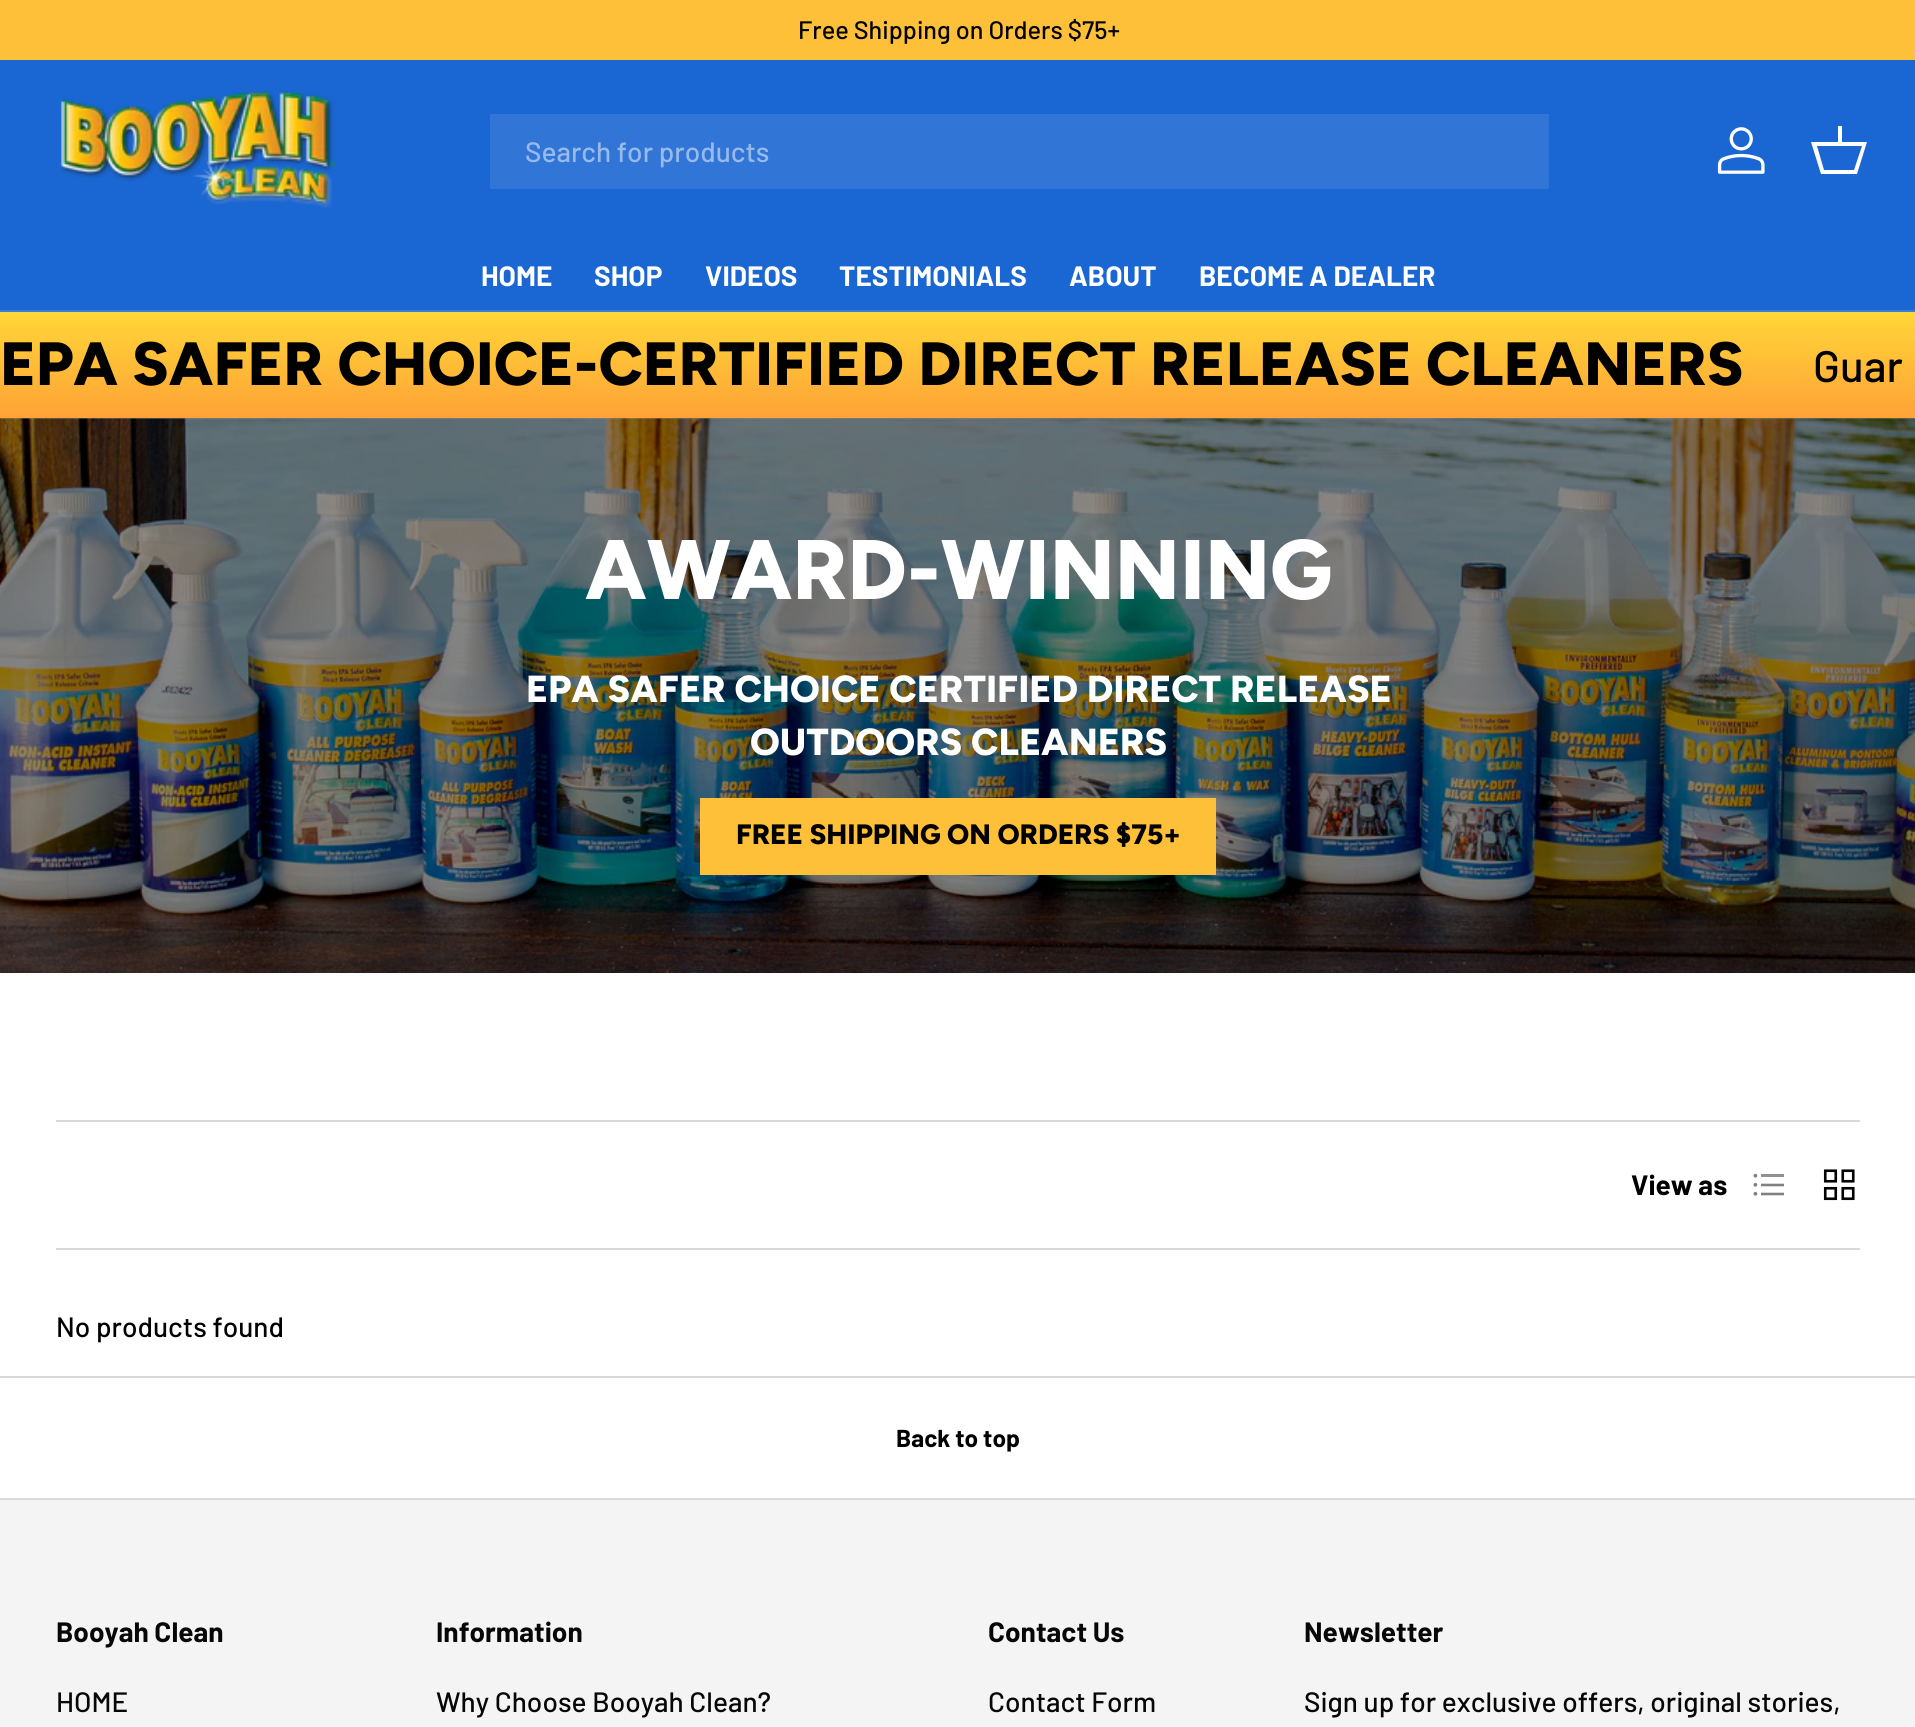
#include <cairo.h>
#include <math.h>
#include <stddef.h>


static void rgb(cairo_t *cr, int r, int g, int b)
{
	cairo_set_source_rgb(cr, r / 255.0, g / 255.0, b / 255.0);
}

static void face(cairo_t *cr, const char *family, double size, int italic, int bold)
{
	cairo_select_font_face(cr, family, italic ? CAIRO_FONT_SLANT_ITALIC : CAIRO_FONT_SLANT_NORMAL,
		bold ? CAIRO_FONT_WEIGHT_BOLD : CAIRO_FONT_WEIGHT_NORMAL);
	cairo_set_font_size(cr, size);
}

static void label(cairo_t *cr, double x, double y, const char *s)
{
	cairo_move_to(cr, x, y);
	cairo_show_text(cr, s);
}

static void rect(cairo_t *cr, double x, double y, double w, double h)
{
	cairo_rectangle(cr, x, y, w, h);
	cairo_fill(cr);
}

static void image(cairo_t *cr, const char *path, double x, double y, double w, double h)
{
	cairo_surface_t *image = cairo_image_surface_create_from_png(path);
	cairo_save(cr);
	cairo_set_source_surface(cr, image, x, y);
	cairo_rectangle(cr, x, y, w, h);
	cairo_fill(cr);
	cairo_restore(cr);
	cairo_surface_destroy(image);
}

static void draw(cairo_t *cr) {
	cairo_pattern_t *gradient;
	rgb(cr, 255, 255, 255);
	cairo_paint(cr);
	rgb(cr, 140, 140, 140);
	rect(cr, 0, 418, 1915, 1);
	rgb(cr, 254, 191, 57);
	rect(cr, 0, 0, 1915, 60);
	face(cr, "Barlow Medium", 25.25, 0, 0);
	rgb(cr, 0, 0, 0);
	label(cr, 798, 39, "Free Shipping on Orders $75+");
	rgb(cr, 26, 102, 210);
	rect(cr, 0, 60, 1915, 250);
	rgb(cr, 60, 125, 217);
	rect(cr, 0, 310, 1915, 2);
	image(cr, "image0.png", 60, 90, 276, 118);
	rgb(cr, 49, 117, 215);
	rect(cr, 490, 114, 1059, 75);
	face(cr, "Barlow Medium", 28, 0, 0);
	rgb(cr, 152, 186, 235);
	label(cr, 525, 162, "Search for products");
	image(cr, "image1.png", 1717, 127, 48, 47);
	rgb(cr, 255, 255, 255);
	cairo_new_path(cr);
	cairo_move_to(cr, 1838, 142);
	cairo_line_to(cr, 1838, 126);
	cairo_line_to(cr, 1842, 126);
	cairo_line_to(cr, 1842, 142);
	cairo_line_to(cr, 1867, 142);
	cairo_line_to(cr, 1857, 174);
	cairo_line_to(cr, 1821, 174);
	cairo_line_to(cr, 1811, 142);
	cairo_close_path(cr);
	cairo_move_to(cr, 1817, 146);
	cairo_line_to(cr, 1824, 170);
	cairo_line_to(cr, 1854, 170);
	cairo_line_to(cr, 1862, 146);
	cairo_close_path(cr);
	cairo_fill(cr);
	face(cr, "Barlow", 28, 0, 1);
	label(cr, 481, 286, "HOME");
	label(cr, 594, 286, "SHOP");
	label(cr, 705, 286, "VIDEOS");
	label(cr, 839, 286, "TESTIMONIALS");
	label(cr, 1069, 286, "ABOUT");
	label(cr, 1199, 286, "BECOME A DEALER");
	gradient = cairo_pattern_create_linear(958, 311, 958, 418);
	cairo_pattern_add_color_stop_rgba(gradient, 0, 1, 0.843, 0.216, 1);
	cairo_pattern_add_color_stop_rgba(gradient, 1, 1, 0.635, 0.216, 1);
	cairo_set_source(cr, gradient);
	cairo_pattern_destroy(gradient);
	rect(cr, 0, 312, 1915, 106);
	face(cr, "Figtree ExtraBold", 60.95, 0, 0);
	rgb(cr, 0, 0, 0);
	label(cr, 0, 385, "EPA SAFER CHOICE-CERTIFIED DIRECT RELEASE CLEANERS");
	face(cr, "Barlow Medium", 44, 0, 0);
	label(cr, 1813, 382, "Guar");
	image(cr, "image2.png", 0, 418, 1915, 555);
	face(cr, "Figtree ExtraBold", 84.25, 0, 0);
	rgb(cr, 255, 255, 255);
	label(cr, 585, 599, "AWARD-WINNING");
	face(cr, "Figtree ExtraBold", 37.65, 0, 0);
	label(cr, 526, 702, "EPA SAFER CHOICE CERTIFIED DIRECT RELEASE");
	label(cr, 750, 755, "OUTDOORS CLEANERS");
	rgb(cr, 254, 191, 57);
	rect(cr, 700, 798, 516, 77);
	face(cr, "Figtree ExtraBold", 28, 0, 0);
	rgb(cr, 0, 0, 0);
	label(cr, 736, 844, "FREE SHIPPING ON ORDERS $75+");
	rgb(cr, 217, 217, 217);
	rect(cr, 56, 1120, 1804, 2);
	rect(cr, 56, 1248, 1804, 2);
	face(cr, "Barlow", 28, 0, 1);
	rgb(cr, 0, 0, 0);
	label(cr, 1631, 1195, "View as");
	rgb(cr, 128, 128, 128);
	cairo_new_path(cr);
	cairo_arc(cr, 1755.4, 1175.7, 1.9, 0, 2 * M_PI);
	cairo_fill(cr);
	rgb(cr, 145, 145, 145);
	rect(cr, 1761, 1174, 23, 3);
	rgb(cr, 128, 128, 128);
	cairo_arc(cr, 1755.4, 1184.8, 1.9, 0, 2 * M_PI);
	cairo_fill(cr);
	cairo_new_path(cr);
	cairo_move_to(cr, 1761, 1185);
	cairo_line_to(cr, 1784, 1185);
	cairo_set_line_width(cr, 2.6);
	cairo_stroke(cr);
	cairo_arc(cr, 1755.4, 1193.8, 1.9, 0, 2 * M_PI);
	cairo_fill(cr);
	cairo_new_path(cr);
	cairo_move_to(cr, 1761, 1194);
	cairo_line_to(cr, 1784, 1194);
	cairo_stroke(cr);
	image(cr, "image3.png", 1823, 1169, 32, 32);
	face(cr, "Barlow Medium", 28, 0, 0);
	rgb(cr, 0, 0, 0);
	label(cr, 56, 1337, "No products found");
	rgb(cr, 217, 217, 217);
	rect(cr, 0, 1376, 1915, 2);
	rect(cr, 0, 1498, 1915, 2);
	face(cr, "Barlow", 24.5, 0, 1);
	rgb(cr, 0, 0, 0);
	label(cr, 896, 1447, "Back to top");
	rgb(cr, 244, 244, 244);
	rect(cr, 0, 1500, 1915, 227);
	face(cr, "Barlow", 28, 0, 1);
	rgb(cr, 7, 7, 7);
	label(cr, 56, 1642, "Booyah Clean");
	face(cr, "Barlow Medium", 28, 0, 0);
	label(cr, 56, 1712, "HOME");
	face(cr, "Barlow", 28, 0, 1);
	label(cr, 436, 1642, "Information");
	face(cr, "Barlow Medium", 28, 0, 0);
	label(cr, 436, 1712, "Why Choose Booyah Clean?");
	face(cr, "Barlow", 28, 0, 1);
	label(cr, 988, 1642, "Contact Us");
	face(cr, "Barlow Medium", 28, 0, 0);
	label(cr, 988, 1712, "Contact Form");
	face(cr, "Barlow", 28, 0, 1);
	label(cr, 1304, 1642, "Newsletter");
	face(cr, "Barlow Medium", 28, 0, 0);
	label(cr, 1304, 1712, "Sign up for exclusive offers, original stories,");
}

int main(void) {
	cairo_surface_t *surface = cairo_image_surface_create(CAIRO_FORMAT_RGB24, 1915, 1727);
	cairo_t *cr = cairo_create(surface);
	cairo_font_options_t *options = cairo_font_options_create();
	cairo_font_options_set_hint_metrics(options, CAIRO_HINT_METRICS_OFF);
	cairo_font_options_set_hint_style(options, CAIRO_HINT_STYLE_NONE);
	cairo_set_font_options(cr, options);
	cairo_set_miter_limit(cr, 4);
	draw(cr);
	cairo_surface_write_to_png(surface, "render.png");
	cairo_font_options_destroy(options);
	cairo_destroy(cr);
	cairo_surface_destroy(surface);
	return 0;
}
